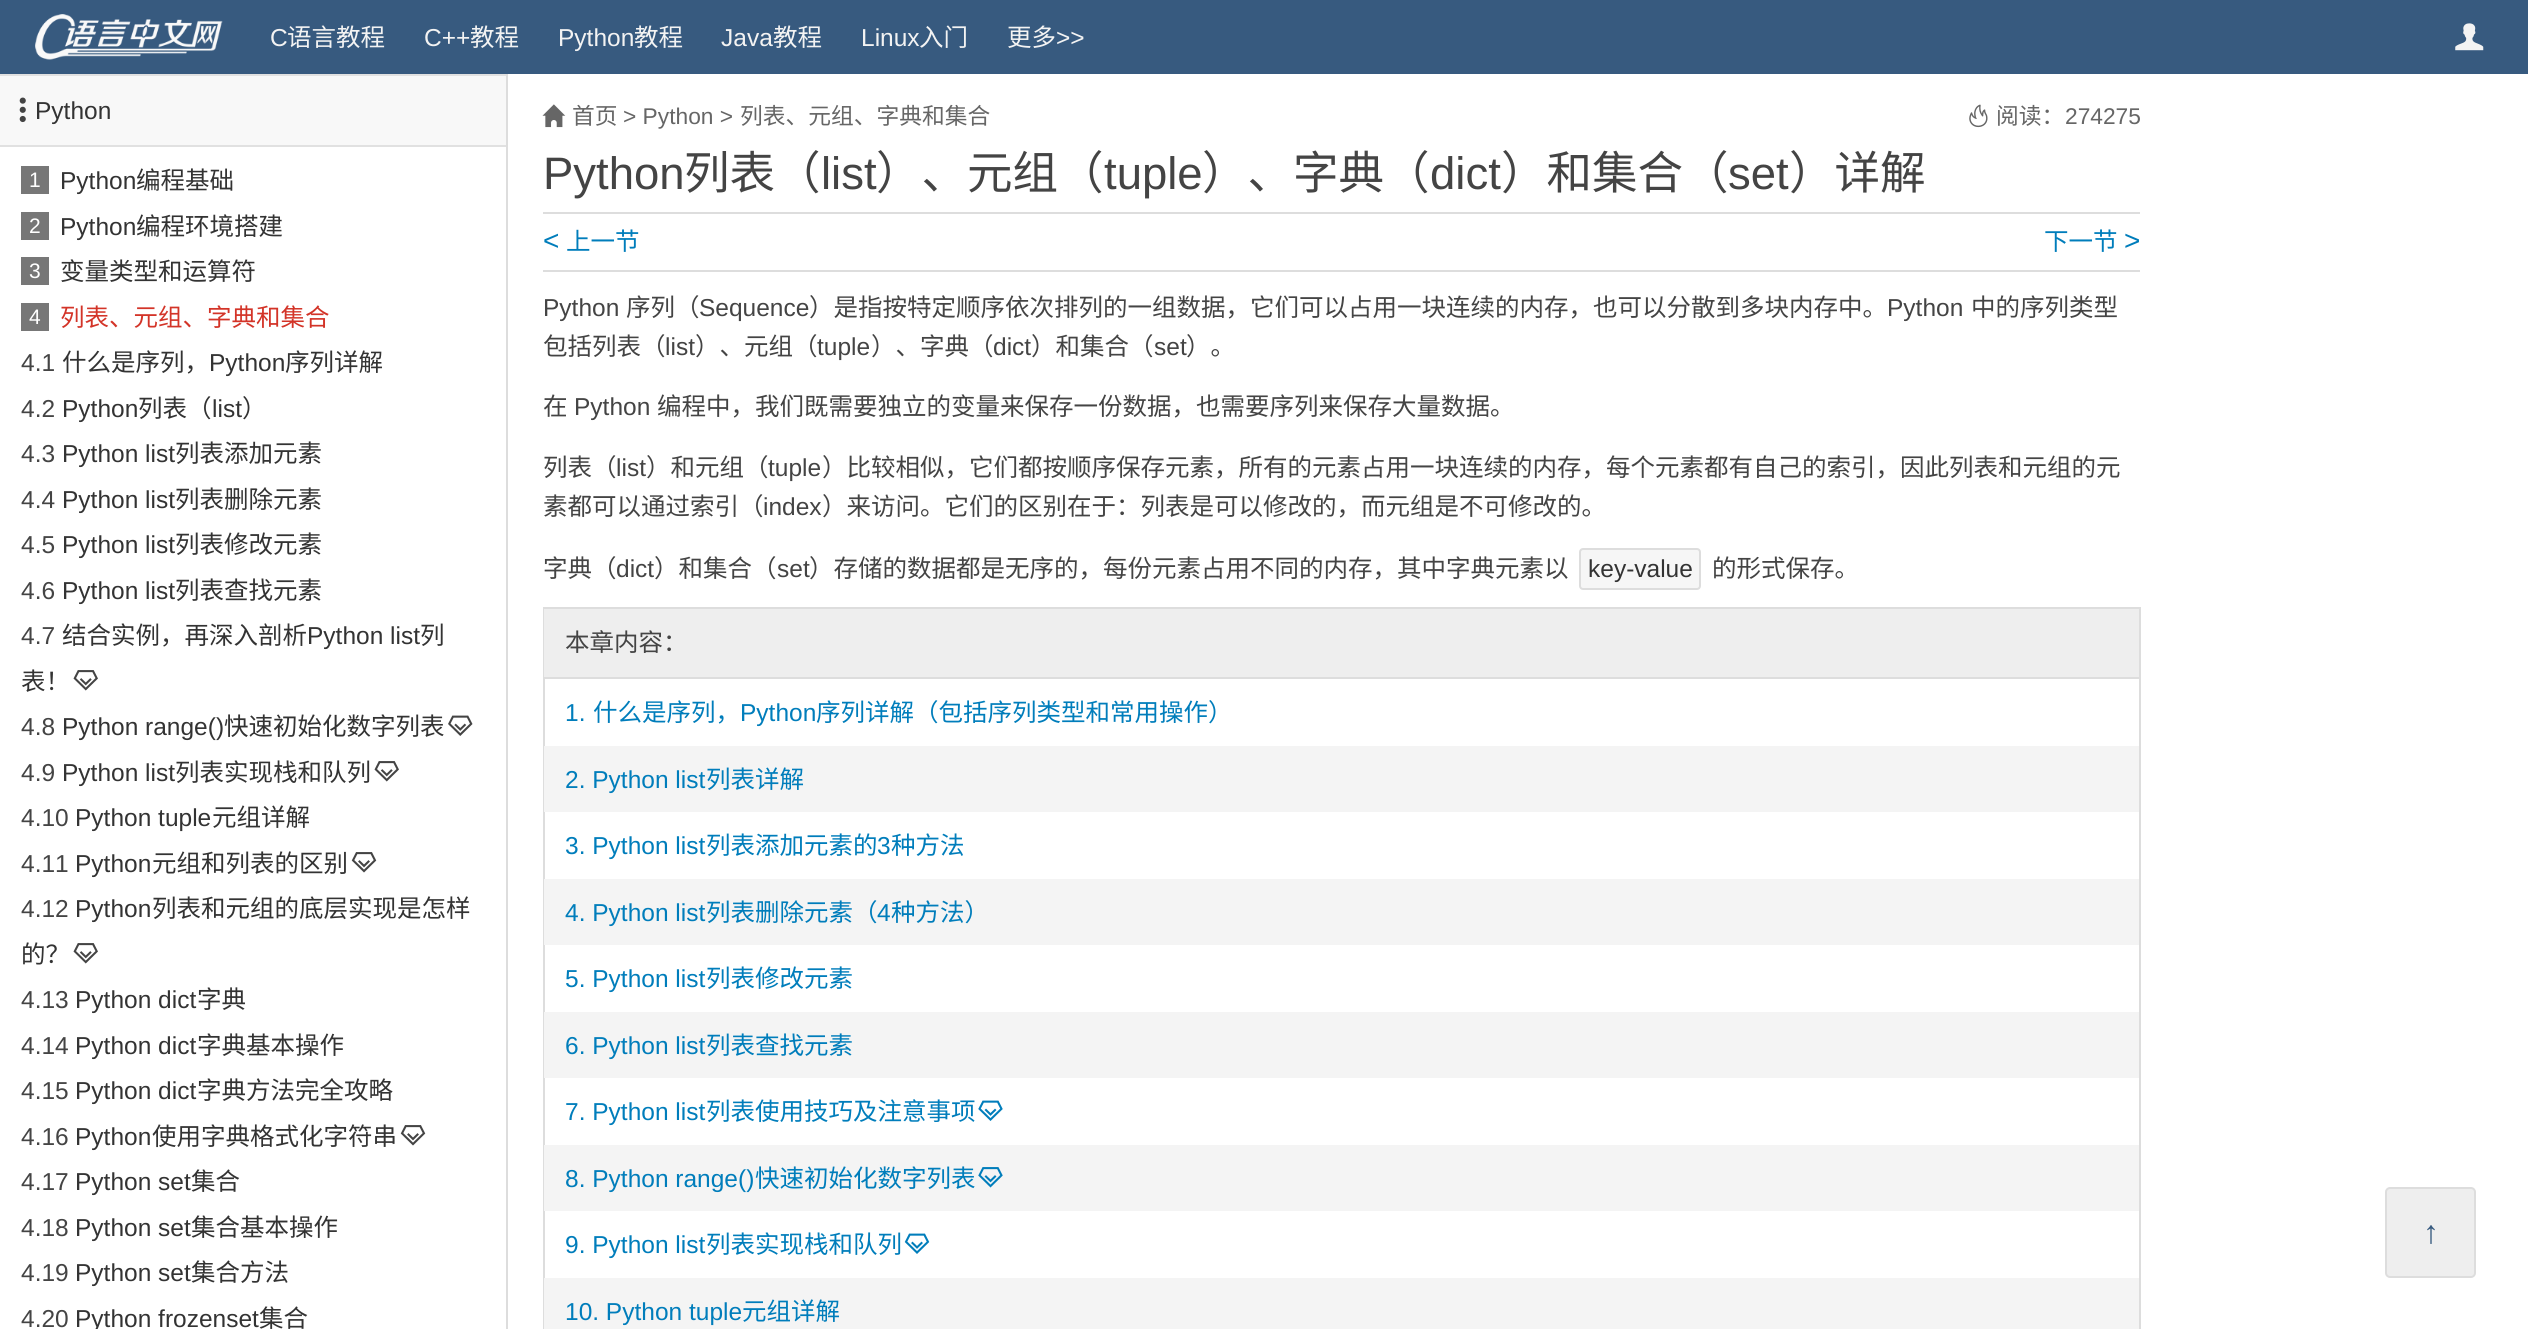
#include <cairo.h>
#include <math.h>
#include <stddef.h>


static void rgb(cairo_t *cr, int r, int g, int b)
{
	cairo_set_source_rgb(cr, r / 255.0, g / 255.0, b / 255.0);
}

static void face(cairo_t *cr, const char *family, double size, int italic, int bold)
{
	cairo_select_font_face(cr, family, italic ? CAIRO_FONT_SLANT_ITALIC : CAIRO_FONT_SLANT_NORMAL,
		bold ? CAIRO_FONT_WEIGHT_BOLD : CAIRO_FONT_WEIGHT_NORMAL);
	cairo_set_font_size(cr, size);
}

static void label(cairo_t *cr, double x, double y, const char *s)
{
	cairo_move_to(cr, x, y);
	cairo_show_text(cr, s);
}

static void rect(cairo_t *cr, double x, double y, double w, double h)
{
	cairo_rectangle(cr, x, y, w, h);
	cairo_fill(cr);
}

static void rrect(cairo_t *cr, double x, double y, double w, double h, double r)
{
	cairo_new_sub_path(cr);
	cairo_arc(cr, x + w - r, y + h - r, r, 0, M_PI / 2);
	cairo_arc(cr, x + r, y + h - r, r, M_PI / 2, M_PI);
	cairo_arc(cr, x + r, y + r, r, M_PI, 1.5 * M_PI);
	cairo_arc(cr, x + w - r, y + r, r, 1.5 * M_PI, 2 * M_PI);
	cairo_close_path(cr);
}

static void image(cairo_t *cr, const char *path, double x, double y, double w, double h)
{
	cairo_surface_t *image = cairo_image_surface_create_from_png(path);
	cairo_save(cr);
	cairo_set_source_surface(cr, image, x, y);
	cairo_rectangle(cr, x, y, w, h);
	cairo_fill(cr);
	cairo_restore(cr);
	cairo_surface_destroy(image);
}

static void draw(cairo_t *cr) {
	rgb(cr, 255, 255, 255);
	cairo_paint(cr);
	rgb(cr, 55, 90, 127);
	rect(cr, 0, 0, 2528, 74);
	image(cr, "image0.png", 35, 14, 188, 46);
	face(cr, "Liberation Sans", 24.5, 0, 0);
	rgb(cr, 243, 243, 243);
	label(cr, 270, 46, "C");
	face(cr, "Noto Sans CJK SC", 24.5, 0, 0);
	label(cr, 287, 46, "语言教程");
	face(cr, "Liberation Sans", 24.5, 0, 0);
	label(cr, 424, 46, "C++");
	face(cr, "Noto Sans CJK SC", 24.5, 0, 0);
	label(cr, 470, 46, "教程");
	face(cr, "Liberation Sans", 24.5, 0, 0);
	label(cr, 558, 46, "Python");
	face(cr, "Noto Sans CJK SC", 24.5, 0, 0);
	label(cr, 634, 46, "教程");
	face(cr, "Liberation Sans", 24.5, 0, 0);
	label(cr, 721, 46, "Java");
	face(cr, "Noto Sans CJK SC", 24.5, 0, 0);
	label(cr, 773, 46, "教程");
	face(cr, "Liberation Sans", 24.5, 0, 0);
	label(cr, 861, 46, "Linux");
	face(cr, "Noto Sans CJK SC", 24.5, 0, 0);
	label(cr, 919, 46, "入门");
	label(cr, 1007, 46, "更多");
	face(cr, "Liberation Sans", 24.5, 0, 0);
	label(cr, 1056, 46, ">>");
	image(cr, "image1.png", 2455, 23, 29, 28);
	rgb(cr, 221, 221, 221);
	rect(cr, 506, 74, 2, 1255);
	rgb(cr, 248, 248, 248);
	rect(cr, 0, 76, 506, 69);
	rgb(cr, 225, 225, 225);
	rect(cr, 0, 74, 506, 2);
	rect(cr, 0, 145, 506, 2);
	image(cr, "image2.png", 19, 97, 7, 26);
	rgb(cr, 51, 51, 51);
	label(cr, 35, 119, "Python");
	rgb(cr, 119, 119, 119);
	rect(cr, 21, 166, 28, 28);
	face(cr, "Liberation Sans", 21, 0, 0);
	rgb(cr, 255, 255, 255);
	label(cr, 29, 187, "1");
	face(cr, "Liberation Sans", 24.5, 0, 0);
	rgb(cr, 51, 51, 51);
	label(cr, 60, 189, "Python");
	face(cr, "Noto Sans CJK SC", 24.5, 0, 0);
	label(cr, 136, 189, "编程基础");
	rgb(cr, 119, 119, 119);
	rect(cr, 21, 212, 28, 28);
	face(cr, "Liberation Sans", 21, 0, 0);
	rgb(cr, 255, 255, 255);
	label(cr, 29, 233, "2");
	face(cr, "Liberation Sans", 24.5, 0, 0);
	rgb(cr, 51, 51, 51);
	label(cr, 60, 235, "Python");
	face(cr, "Noto Sans CJK SC", 24.5, 0, 0);
	label(cr, 136, 235, "编程环境搭建");
	rgb(cr, 119, 119, 119);
	rect(cr, 21, 257, 28, 28);
	face(cr, "Liberation Sans", 21, 0, 0);
	rgb(cr, 255, 255, 255);
	label(cr, 29, 278, "3");
	face(cr, "Noto Sans CJK SC", 24.5, 0, 0);
	rgb(cr, 51, 51, 51);
	label(cr, 60, 280, "变量类型和运算符");
	rgb(cr, 119, 119, 119);
	rect(cr, 21, 303, 28, 28);
	face(cr, "Liberation Sans", 21, 0, 0);
	rgb(cr, 255, 255, 255);
	label(cr, 29, 324, "4");
	face(cr, "Noto Sans CJK SC", 24.5, 0, 0);
	rgb(cr, 211, 52, 40);
	label(cr, 60, 326, "列表、元组、字典和集合");
	face(cr, "Liberation Sans", 24.5, 0, 0);
	rgb(cr, 68, 68, 68);
	label(cr, 21, 371, "4.1");
	face(cr, "Noto Sans CJK SC", 24.5, 0, 0);
	rgb(cr, 51, 51, 51);
	label(cr, 62, 371, "什么是序列，");
	face(cr, "Liberation Sans", 24.5, 0, 0);
	label(cr, 209, 371, "Python");
	face(cr, "Noto Sans CJK SC", 24.5, 0, 0);
	label(cr, 285, 371, "序列详解");
	face(cr, "Liberation Sans", 24.5, 0, 0);
	rgb(cr, 68, 68, 68);
	label(cr, 21, 417, "4.2");
	rgb(cr, 51, 51, 51);
	label(cr, 62, 417, "Python");
	face(cr, "Noto Sans CJK SC", 24.5, 0, 0);
	label(cr, 138, 417, "列表（");
	face(cr, "Liberation Sans", 24.5, 0, 0);
	label(cr, 212, 417, "list");
	face(cr, "Noto Sans CJK SC", 24.5, 0, 0);
	label(cr, 242, 417, "）");
	face(cr, "Liberation Sans", 24.5, 0, 0);
	rgb(cr, 68, 68, 68);
	label(cr, 21, 462, "4.3");
	rgb(cr, 51, 51, 51);
	label(cr, 62, 462, "Python list");
	face(cr, "Noto Sans CJK SC", 24.5, 0, 0);
	label(cr, 175, 462, "列表添加元素");
	face(cr, "Liberation Sans", 24.5, 0, 0);
	rgb(cr, 68, 68, 68);
	label(cr, 21, 508, "4.4");
	rgb(cr, 51, 51, 51);
	label(cr, 62, 508, "Python list");
	face(cr, "Noto Sans CJK SC", 24.5, 0, 0);
	label(cr, 175, 508, "列表删除元素");
	face(cr, "Liberation Sans", 24.5, 0, 0);
	rgb(cr, 68, 68, 68);
	label(cr, 21, 553, "4.5");
	rgb(cr, 51, 51, 51);
	label(cr, 62, 553, "Python list");
	face(cr, "Noto Sans CJK SC", 24.5, 0, 0);
	label(cr, 175, 553, "列表修改元素");
	face(cr, "Liberation Sans", 24.5, 0, 0);
	rgb(cr, 68, 68, 68);
	label(cr, 21, 599, "4.6");
	rgb(cr, 51, 51, 51);
	label(cr, 62, 599, "Python list");
	face(cr, "Noto Sans CJK SC", 24.5, 0, 0);
	label(cr, 175, 599, "列表查找元素");
	face(cr, "Liberation Sans", 24.5, 0, 0);
	rgb(cr, 68, 68, 68);
	label(cr, 21, 644, "4.7");
	face(cr, "Noto Sans CJK SC", 24.5, 0, 0);
	rgb(cr, 51, 51, 51);
	label(cr, 62, 644, "结合实例，再深入剖析");
	face(cr, "Liberation Sans", 24.5, 0, 0);
	label(cr, 307, 644, "Python list");
	face(cr, "Noto Sans CJK SC", 24.5, 0, 0);
	label(cr, 420, 644, "列");
	label(cr, 21, 690, "表！");
	image(cr, "image3.png", 73, 670, 25, 21);
	face(cr, "Liberation Sans", 24.5, 0, 0);
	rgb(cr, 68, 68, 68);
	label(cr, 21, 735, "4.8");
	rgb(cr, 51, 51, 51);
	label(cr, 62, 735, "Python range()");
	face(cr, "Noto Sans CJK SC", 24.5, 0, 0);
	label(cr, 224, 735, "快速初始化数字列表");
	image(cr, "image4.png", 448, 715, 25, 21);
	face(cr, "Liberation Sans", 24.5, 0, 0);
	rgb(cr, 68, 68, 68);
	label(cr, 21, 781, "4.9");
	rgb(cr, 51, 51, 51);
	label(cr, 62, 781, "Python list");
	face(cr, "Noto Sans CJK SC", 24.5, 0, 0);
	label(cr, 175, 781, "列表实现栈和队列");
	image(cr, "image3.png", 374, 761, 25, 21);
	face(cr, "Liberation Sans", 24.5, 0, 0);
	rgb(cr, 68, 68, 68);
	label(cr, 21, 826, "4.10");
	rgb(cr, 51, 51, 51);
	label(cr, 75, 826, "Python tuple");
	face(cr, "Noto Sans CJK SC", 24.5, 0, 0);
	label(cr, 212, 826, "元组详解");
	face(cr, "Liberation Sans", 24.5, 0, 0);
	rgb(cr, 68, 68, 68);
	label(cr, 21, 872, "4.11");
	rgb(cr, 51, 51, 51);
	label(cr, 75, 872, "Python");
	face(cr, "Noto Sans CJK SC", 24.5, 0, 0);
	label(cr, 152, 872, "元组和列表的区别");
	image(cr, "image5.png", 351, 852, 26, 21);
	face(cr, "Liberation Sans", 24.5, 0, 0);
	rgb(cr, 68, 68, 68);
	label(cr, 21, 917, "4.12");
	rgb(cr, 51, 51, 51);
	label(cr, 75, 917, "Python");
	face(cr, "Noto Sans CJK SC", 24.5, 0, 0);
	label(cr, 152, 917, "列表和元组的底层实现是怎样");
	label(cr, 21, 963, "的？");
	image(cr, "image3.png", 73, 943, 25, 21);
	face(cr, "Liberation Sans", 24.5, 0, 0);
	rgb(cr, 68, 68, 68);
	label(cr, 21, 1008, "4.13");
	rgb(cr, 51, 51, 51);
	label(cr, 75, 1008, "Python dict");
	face(cr, "Noto Sans CJK SC", 24.5, 0, 0);
	label(cr, 197, 1008, "字典");
	face(cr, "Liberation Sans", 24.5, 0, 0);
	rgb(cr, 68, 68, 68);
	label(cr, 21, 1054, "4.14");
	rgb(cr, 51, 51, 51);
	label(cr, 75, 1054, "Python dict");
	face(cr, "Noto Sans CJK SC", 24.5, 0, 0);
	label(cr, 197, 1054, "字典基本操作");
	face(cr, "Liberation Sans", 24.5, 0, 0);
	rgb(cr, 68, 68, 68);
	label(cr, 21, 1099, "4.15");
	rgb(cr, 51, 51, 51);
	label(cr, 75, 1099, "Python dict");
	face(cr, "Noto Sans CJK SC", 24.5, 0, 0);
	label(cr, 197, 1099, "字典方法完全攻略");
	face(cr, "Liberation Sans", 24.5, 0, 0);
	rgb(cr, 68, 68, 68);
	label(cr, 21, 1145, "4.16");
	rgb(cr, 51, 51, 51);
	label(cr, 75, 1145, "Python");
	face(cr, "Noto Sans CJK SC", 24.5, 0, 0);
	label(cr, 152, 1145, "使用字典格式化字符串");
	image(cr, "image5.png", 400, 1125, 26, 21);
	face(cr, "Liberation Sans", 24.5, 0, 0);
	rgb(cr, 68, 68, 68);
	label(cr, 21, 1190, "4.17");
	rgb(cr, 51, 51, 51);
	label(cr, 75, 1190, "Python set");
	face(cr, "Noto Sans CJK SC", 24.5, 0, 0);
	label(cr, 191, 1190, "集合");
	face(cr, "Liberation Sans", 24.5, 0, 0);
	rgb(cr, 68, 68, 68);
	label(cr, 21, 1236, "4.18");
	rgb(cr, 51, 51, 51);
	label(cr, 75, 1236, "Python set");
	face(cr, "Noto Sans CJK SC", 24.5, 0, 0);
	label(cr, 191, 1236, "集合基本操作");
	face(cr, "Liberation Sans", 24.5, 0, 0);
	rgb(cr, 68, 68, 68);
	label(cr, 21, 1281, "4.19");
	rgb(cr, 51, 51, 51);
	label(cr, 75, 1281, "Python set");
	face(cr, "Noto Sans CJK SC", 24.5, 0, 0);
	label(cr, 191, 1281, "集合方法");
	face(cr, "Liberation Sans", 24.5, 0, 0);
	rgb(cr, 68, 68, 68);
	label(cr, 21, 1327, "4.20");
	rgb(cr, 51, 51, 51);
	label(cr, 75, 1327, "Python frozenset");
	face(cr, "Noto Sans CJK SC", 24.5, 0, 0);
	label(cr, 259, 1327, "集合");
	image(cr, "image6.png", 542, 104, 24, 24);
	face(cr, "Noto Sans CJK SC", 22.75, 0, 0);
	rgb(cr, 102, 102, 102);
	label(cr, 572, 124, "首页");
	face(cr, "Liberation Sans", 22.75, 0, 0);
	label(cr, 623, 124, "> Python >");
	face(cr, "Noto Sans CJK SC", 22.75, 0, 0);
	label(cr, 740, 124, "列表、元组、字典和集合");
	image(cr, "image7.png", 1969, 104, 19, 24);
	label(cr, 1996, 124, "阅读：");
	face(cr, "Liberation Sans", 22.75, 0, 0);
	label(cr, 2065, 124, "274275");
	face(cr, "Liberation Sans", 45.5, 0, 0);
	rgb(cr, 68, 68, 68);
	label(cr, 543, 189, "Python");
	face(cr, "Noto Sans CJK SC", 45.5, 0, 0);
	label(cr, 684, 189, "列表（");
	face(cr, "Liberation Sans", 45.5, 0, 0);
	label(cr, 821, 189, "list");
	face(cr, "Noto Sans CJK SC", 45.5, 0, 0);
	label(cr, 876, 189, "）、元组（");
	face(cr, "Liberation Sans", 45.5, 0, 0);
	label(cr, 1104, 189, "tuple");
	face(cr, "Noto Sans CJK SC", 45.5, 0, 0);
	label(cr, 1202, 189, "）、字典（");
	face(cr, "Liberation Sans", 45.5, 0, 0);
	label(cr, 1430, 189, "dict");
	face(cr, "Noto Sans CJK SC", 45.5, 0, 0);
	label(cr, 1501, 189, "）和集合（");
	face(cr, "Liberation Sans", 45.5, 0, 0);
	label(cr, 1728, 189, "set");
	face(cr, "Noto Sans CJK SC", 45.5, 0, 0);
	label(cr, 1789, 189, "）详解");
	rgb(cr, 221, 221, 221);
	rect(cr, 543, 212, 1597, 2);
	rect(cr, 543, 270, 1597, 2);
	face(cr, "Liberation Sans", 28, 0, 0);
	rgb(cr, 0, 125, 187);
	label(cr, 543, 250, "<");
	face(cr, "Noto Sans CJK SC", 24.5, 0, 0);
	label(cr, 566, 250, "上一节");
	label(cr, 2044, 250, "下一节");
	face(cr, "Liberation Sans", 28, 0, 0);
	label(cr, 2124, 250, ">");
	face(cr, "Liberation Sans", 24.5, 0, 0);
	rgb(cr, 68, 68, 68);
	label(cr, 543, 316, "Python");
	face(cr, "Noto Sans CJK SC", 24.5, 0, 0);
	label(cr, 626, 316, "序列（");
	face(cr, "Liberation Sans", 24.5, 0, 0);
	label(cr, 699, 316, "Sequence");
	face(cr, "Noto Sans CJK SC", 24.5, 0, 0);
	label(cr, 809, 316, "）是指按特定顺序依次排列的一组数据，它们可以占用一块连续的内存，也可以分散到多块内存中。");
	face(cr, "Liberation Sans", 24.5, 0, 0);
	label(cr, 1887, 316, "Python");
	face(cr, "Noto Sans CJK SC", 24.5, 0, 0);
	label(cr, 1971, 316, "中的序列类型");
	label(cr, 543, 355, "包括列表（");
	face(cr, "Liberation Sans", 24.5, 0, 0);
	label(cr, 665, 355, "list");
	face(cr, "Noto Sans CJK SC", 24.5, 0, 0);
	label(cr, 695, 355, "）、元组（");
	face(cr, "Liberation Sans", 24.5, 0, 0);
	label(cr, 817, 355, "tuple");
	face(cr, "Noto Sans CJK SC", 24.5, 0, 0);
	label(cr, 871, 355, "）、字典（");
	face(cr, "Liberation Sans", 24.5, 0, 0);
	label(cr, 993, 355, "dict");
	face(cr, "Noto Sans CJK SC", 24.5, 0, 0);
	label(cr, 1031, 355, "）和集合（");
	face(cr, "Liberation Sans", 24.5, 0, 0);
	label(cr, 1154, 355, "set");
	face(cr, "Noto Sans CJK SC", 24.5, 0, 0);
	label(cr, 1186, 355, "）。");
	label(cr, 543, 415, "在");
	face(cr, "Liberation Sans", 24.5, 0, 0);
	label(cr, 574, 415, "Python");
	face(cr, "Noto Sans CJK SC", 24.5, 0, 0);
	label(cr, 657, 415, "编程中，我们既需要独立的变量来保存一份数据，也需要序列来保存大量数据。");
	label(cr, 543, 476, "列表（");
	face(cr, "Liberation Sans", 24.5, 0, 0);
	label(cr, 616, 476, "list");
	face(cr, "Noto Sans CJK SC", 24.5, 0, 0);
	label(cr, 646, 476, "）和元组（");
	face(cr, "Liberation Sans", 24.5, 0, 0);
	label(cr, 768, 476, "tuple");
	face(cr, "Noto Sans CJK SC", 24.5, 0, 0);
	label(cr, 822, 476, "）比较相似，它们都按顺序保存元素，所有的元素占用一块连续的内存，每个元素都有自己的索引，因此列表和元组的元");
	label(cr, 543, 515, "素都可以通过索引（");
	face(cr, "Liberation Sans", 24.5, 0, 0);
	label(cr, 763, 515, "index");
	face(cr, "Noto Sans CJK SC", 24.5, 0, 0);
	label(cr, 822, 515, "）来访问。它们的区别在于：列表是可以修改的，而元组是不可修改的。");
	label(cr, 543, 577, "字典（");
	face(cr, "Liberation Sans", 24.5, 0, 0);
	label(cr, 616, 577, "dict");
	face(cr, "Noto Sans CJK SC", 24.5, 0, 0);
	label(cr, 654, 577, "）和集合（");
	face(cr, "Liberation Sans", 24.5, 0, 0);
	label(cr, 777, 577, "set");
	face(cr, "Noto Sans CJK SC", 24.5, 0, 0);
	label(cr, 809, 577, "）存储的数据都是无序的，每份元素占用不同的内存，其中字典元素以");
	rgb(cr, 246, 246, 246);
	rrect(cr, 1580, 549, 120, 40, 3);
	cairo_fill_preserve(cr);
	rgb(cr, 221, 221, 221);
	cairo_stroke(cr);
	face(cr, "Liberation Sans", 24.5, 0, 0);
	rgb(cr, 51, 51, 51);
	label(cr, 1588, 577, "key-value");
	face(cr, "Noto Sans CJK SC", 24.5, 0, 0);
	rgb(cr, 68, 68, 68);
	label(cr, 1712, 577, "的形式保存。");
	rgb(cr, 221, 221, 221);
	rect(cr, 2139, 607, 2, 722);
	rect(cr, 543, 607, 2, 722);
	rgb(cr, 238, 238, 238);
	rect(cr, 544, 609, 1595, 68);
	rgb(cr, 221, 221, 221);
	rect(cr, 544, 607, 1595, 2);
	rect(cr, 544, 677, 1595, 2);
	rgb(cr, 68, 68, 68);
	label(cr, 565, 651, "本章内容：");
	face(cr, "Liberation Sans", 24.5, 0, 0);
	rgb(cr, 0, 125, 187);
	label(cr, 565, 721, "1.");
	face(cr, "Noto Sans CJK SC", 24.5, 0, 0);
	label(cr, 593, 721, "什么是序列，");
	face(cr, "Liberation Sans", 24.5, 0, 0);
	label(cr, 740, 721, "Python");
	face(cr, "Noto Sans CJK SC", 24.5, 0, 0);
	label(cr, 816, 721, "序列详解（包括序列类型和常用操作）");
	rgb(cr, 244, 244, 244);
	rect(cr, 544, 746, 1595, 66);
	face(cr, "Liberation Sans", 24.5, 0, 0);
	rgb(cr, 0, 125, 187);
	label(cr, 565, 788, "2. Python list");
	face(cr, "Noto Sans CJK SC", 24.5, 0, 0);
	label(cr, 706, 788, "列表详解");
	face(cr, "Liberation Sans", 24.5, 0, 0);
	label(cr, 565, 854, "3. Python list");
	face(cr, "Noto Sans CJK SC", 24.5, 0, 0);
	label(cr, 706, 854, "列表添加元素的");
	face(cr, "Liberation Sans", 24.5, 0, 0);
	label(cr, 877, 854, "3");
	face(cr, "Noto Sans CJK SC", 24.5, 0, 0);
	label(cr, 891, 854, "种方法");
	rgb(cr, 244, 244, 244);
	rect(cr, 544, 879, 1595, 66);
	face(cr, "Liberation Sans", 24.5, 0, 0);
	rgb(cr, 0, 125, 187);
	label(cr, 565, 921, "4. Python list");
	face(cr, "Noto Sans CJK SC", 24.5, 0, 0);
	label(cr, 706, 921, "列表删除元素（");
	face(cr, "Liberation Sans", 24.5, 0, 0);
	label(cr, 877, 921, "4");
	face(cr, "Noto Sans CJK SC", 24.5, 0, 0);
	label(cr, 891, 921, "种方法）");
	face(cr, "Liberation Sans", 24.5, 0, 0);
	label(cr, 565, 987, "5. Python list");
	face(cr, "Noto Sans CJK SC", 24.5, 0, 0);
	label(cr, 706, 987, "列表修改元素");
	rgb(cr, 244, 244, 244);
	rect(cr, 544, 1012, 1595, 66);
	face(cr, "Liberation Sans", 24.5, 0, 0);
	rgb(cr, 0, 125, 187);
	label(cr, 565, 1054, "6. Python list");
	face(cr, "Noto Sans CJK SC", 24.5, 0, 0);
	label(cr, 706, 1054, "列表查找元素");
	face(cr, "Liberation Sans", 24.5, 0, 0);
	label(cr, 565, 1120, "7. Python list");
	face(cr, "Noto Sans CJK SC", 24.5, 0, 0);
	label(cr, 706, 1120, "列表使用技巧及注意事项");
	image(cr, "image8.png", 978, 1100, 25, 21);
	rgb(cr, 244, 244, 244);
	rect(cr, 544, 1145, 1595, 66);
	face(cr, "Liberation Sans", 24.5, 0, 0);
	rgb(cr, 0, 125, 187);
	label(cr, 565, 1187, "8. Python range()");
	face(cr, "Noto Sans CJK SC", 24.5, 0, 0);
	label(cr, 755, 1187, "快速初始化数字列表");
	image(cr, "image9.png", 978, 1167, 25, 21);
	face(cr, "Liberation Sans", 24.5, 0, 0);
	label(cr, 565, 1253, "9. Python list");
	face(cr, "Noto Sans CJK SC", 24.5, 0, 0);
	label(cr, 706, 1253, "列表实现栈和队列");
	image(cr, "image10.png", 904, 1233, 26, 21);
	rgb(cr, 244, 244, 244);
	rect(cr, 544, 1278, 1595, 51);
	face(cr, "Liberation Sans", 24.5, 0, 0);
	rgb(cr, 0, 125, 187);
	label(cr, 565, 1320, "10. Python tuple");
	face(cr, "Noto Sans CJK SC", 24.5, 0, 0);
	label(cr, 742, 1320, "元组详解");
	rgb(cr, 238, 238, 238);
	rrect(cr, 2386, 1188, 89, 89, 4);
	cairo_fill_preserve(cr);
	rgb(cr, 221, 221, 221);
	cairo_stroke(cr);
	face(cr, "Liberation Serif", 32, 0, 1);
	rgb(cr, 55, 90, 127);
	label(cr, 2423, 1243, "↑");
}

int main(void) {
	cairo_surface_t *surface = cairo_image_surface_create(CAIRO_FORMAT_RGB24, 2528, 1329);
	cairo_t *cr = cairo_create(surface);
	cairo_font_options_t *options = cairo_font_options_create();
	cairo_font_options_set_hint_metrics(options, CAIRO_HINT_METRICS_OFF);
	cairo_font_options_set_hint_style(options, CAIRO_HINT_STYLE_NONE);
	cairo_set_font_options(cr, options);
	cairo_set_miter_limit(cr, 4);
	draw(cr);
	cairo_surface_write_to_png(surface, "render.png");
	cairo_font_options_destroy(options);
	cairo_destroy(cr);
	cairo_surface_destroy(surface);
	return 0;
}
